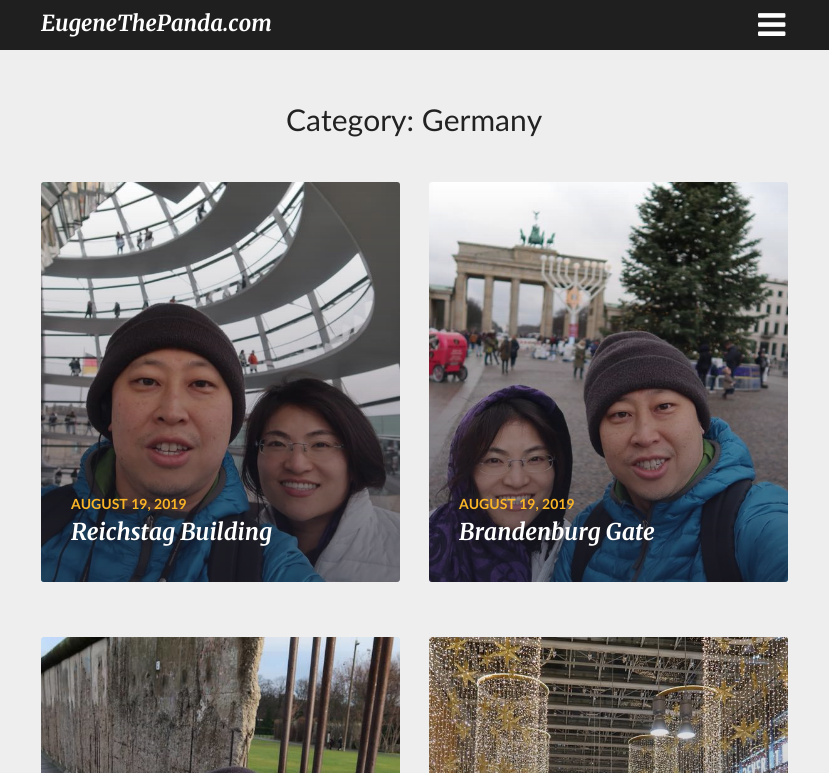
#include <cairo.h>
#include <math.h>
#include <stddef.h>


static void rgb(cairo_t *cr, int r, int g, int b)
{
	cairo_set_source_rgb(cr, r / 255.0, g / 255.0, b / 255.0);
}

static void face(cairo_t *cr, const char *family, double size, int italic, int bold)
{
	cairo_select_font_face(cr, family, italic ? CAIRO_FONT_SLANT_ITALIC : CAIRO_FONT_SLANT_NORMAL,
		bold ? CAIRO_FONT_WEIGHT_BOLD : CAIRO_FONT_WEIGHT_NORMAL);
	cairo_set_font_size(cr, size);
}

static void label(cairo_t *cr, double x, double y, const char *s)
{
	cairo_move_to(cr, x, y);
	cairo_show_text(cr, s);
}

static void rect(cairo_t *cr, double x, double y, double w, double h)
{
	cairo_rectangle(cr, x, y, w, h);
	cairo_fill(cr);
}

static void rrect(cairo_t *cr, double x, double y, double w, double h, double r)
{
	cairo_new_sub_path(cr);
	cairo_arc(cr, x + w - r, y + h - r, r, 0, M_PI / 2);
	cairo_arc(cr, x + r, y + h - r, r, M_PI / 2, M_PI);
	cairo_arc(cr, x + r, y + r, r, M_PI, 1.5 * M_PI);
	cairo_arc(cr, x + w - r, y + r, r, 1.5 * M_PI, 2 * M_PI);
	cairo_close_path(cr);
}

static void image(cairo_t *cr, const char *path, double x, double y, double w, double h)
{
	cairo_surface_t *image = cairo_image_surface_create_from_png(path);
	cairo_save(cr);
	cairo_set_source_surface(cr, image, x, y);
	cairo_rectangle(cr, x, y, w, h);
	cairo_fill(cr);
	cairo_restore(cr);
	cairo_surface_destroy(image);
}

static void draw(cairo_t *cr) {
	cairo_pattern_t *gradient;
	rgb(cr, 238, 238, 238);
	cairo_paint(cr);
	rgb(cr, 31, 31, 31);
	rect(cr, 0, 0, 829, 50);
	face(cr, "Merriweather", 22, 1, 1);
	rgb(cr, 255, 255, 255);
	label(cr, 41, 31, "EugeneThePanda.com");
	image(cr, "image0.png", 758, 13, 28, 23);
	face(cr, "Lato", 30, 0, 0);
	rgb(cr, 34, 34, 34);
	label(cr, 286, 131, "Category: Germany");
	image(cr, "image1.png", 41, 182, 359, 400);
	gradient = cairo_pattern_create_linear(220, 182, 221, 582);
	cairo_pattern_add_color_stop_rgba(gradient, 0, 0.125, 0.118, 0.173, 0);
	cairo_pattern_add_color_stop_rgba(gradient, 0.88, 0.125, 0.118, 0.173, 0.51);
	cairo_pattern_add_color_stop_rgba(gradient, 0.89, 0.125, 0.118, 0.173, 0.52);
	cairo_set_source(cr, gradient);
	cairo_pattern_destroy(gradient);
	rrect(cr, 41, 182, 359, 400, 3);
	cairo_fill(cr);
	face(cr, "Lato", 14, 0, 1);
	rgb(cr, 250, 181, 38);
	label(cr, 71, 509, "AUGUST 19, 2019");
	face(cr, "Merriweather", 23, 1, 1);
	rgb(cr, 255, 255, 255);
	label(cr, 71, 540, "Reichstag Building");
	image(cr, "image2.png", 429, 182, 359, 400);
	gradient = cairo_pattern_create_linear(609, 182, 609, 582);
	cairo_pattern_add_color_stop_rgba(gradient, 0, 0.125, 0.118, 0.173, 0);
	cairo_pattern_add_color_stop_rgba(gradient, 0.88, 0.125, 0.118, 0.173, 0.51);
	cairo_pattern_add_color_stop_rgba(gradient, 0.89, 0.125, 0.118, 0.173, 0.52);
	cairo_set_source(cr, gradient);
	cairo_pattern_destroy(gradient);
	rrect(cr, 429, 182, 359, 400, 3);
	cairo_fill(cr);
	face(cr, "Lato", 14, 0, 1);
	rgb(cr, 250, 181, 38);
	label(cr, 459, 509, "AUGUST 19, 2019");
	face(cr, "Merriweather", 23, 1, 1);
	rgb(cr, 255, 255, 255);
	label(cr, 459, 540, "Brandenburg Gate");
	image(cr, "image3.png", 41, 637, 359, 136);
	gradient = cairo_pattern_create_linear(220, 637, 221, 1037);
	cairo_pattern_add_color_stop_rgba(gradient, 0, 0.125, 0.118, 0.173, 0);
	cairo_pattern_add_color_stop_rgba(gradient, 0.88, 0.125, 0.118, 0.173, 0.51);
	cairo_pattern_add_color_stop_rgba(gradient, 0.89, 0.125, 0.118, 0.173, 0.52);
	cairo_set_source(cr, gradient);
	cairo_pattern_destroy(gradient);
	rect(cr, 41, 651, 359, 122);
	image(cr, "image4.png", 429, 637, 359, 136);
	gradient = cairo_pattern_create_linear(609, 637, 609, 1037);
	cairo_pattern_add_color_stop_rgba(gradient, 0, 0.125, 0.118, 0.173, 0);
	cairo_pattern_add_color_stop_rgba(gradient, 0.88, 0.125, 0.118, 0.173, 0.51);
	cairo_pattern_add_color_stop_rgba(gradient, 0.89, 0.125, 0.118, 0.173, 0.52);
	cairo_set_source(cr, gradient);
	cairo_pattern_destroy(gradient);
	rect(cr, 429, 652, 359, 121);
}

int main(void) {
	cairo_surface_t *surface = cairo_image_surface_create(CAIRO_FORMAT_RGB24, 829, 773);
	cairo_t *cr = cairo_create(surface);
	cairo_font_options_t *options = cairo_font_options_create();
	cairo_font_options_set_hint_metrics(options, CAIRO_HINT_METRICS_OFF);
	cairo_font_options_set_hint_style(options, CAIRO_HINT_STYLE_NONE);
	cairo_set_font_options(cr, options);
	cairo_set_miter_limit(cr, 4);
	draw(cr);
	cairo_surface_write_to_png(surface, "render.png");
	cairo_font_options_destroy(options);
	cairo_destroy(cr);
	cairo_surface_destroy(surface);
	return 0;
}
